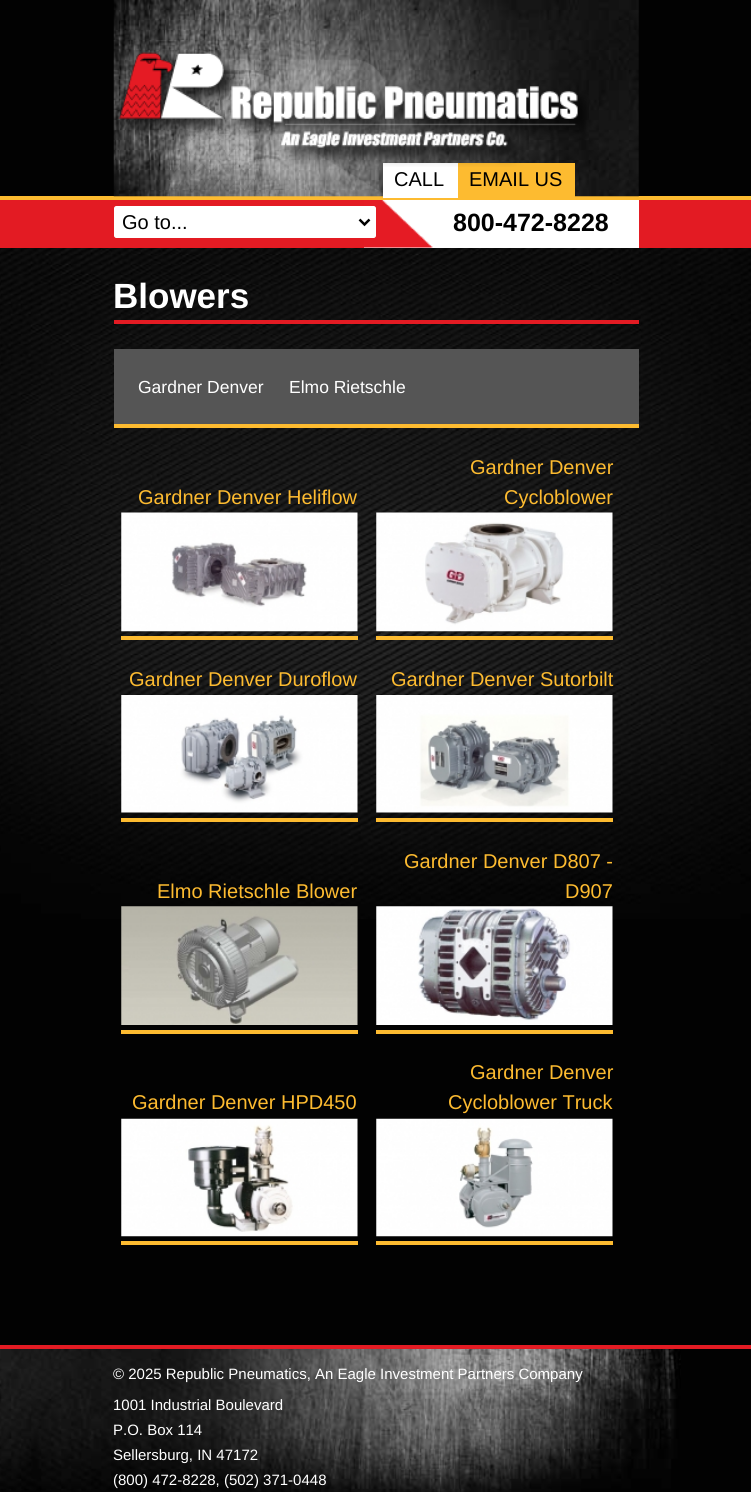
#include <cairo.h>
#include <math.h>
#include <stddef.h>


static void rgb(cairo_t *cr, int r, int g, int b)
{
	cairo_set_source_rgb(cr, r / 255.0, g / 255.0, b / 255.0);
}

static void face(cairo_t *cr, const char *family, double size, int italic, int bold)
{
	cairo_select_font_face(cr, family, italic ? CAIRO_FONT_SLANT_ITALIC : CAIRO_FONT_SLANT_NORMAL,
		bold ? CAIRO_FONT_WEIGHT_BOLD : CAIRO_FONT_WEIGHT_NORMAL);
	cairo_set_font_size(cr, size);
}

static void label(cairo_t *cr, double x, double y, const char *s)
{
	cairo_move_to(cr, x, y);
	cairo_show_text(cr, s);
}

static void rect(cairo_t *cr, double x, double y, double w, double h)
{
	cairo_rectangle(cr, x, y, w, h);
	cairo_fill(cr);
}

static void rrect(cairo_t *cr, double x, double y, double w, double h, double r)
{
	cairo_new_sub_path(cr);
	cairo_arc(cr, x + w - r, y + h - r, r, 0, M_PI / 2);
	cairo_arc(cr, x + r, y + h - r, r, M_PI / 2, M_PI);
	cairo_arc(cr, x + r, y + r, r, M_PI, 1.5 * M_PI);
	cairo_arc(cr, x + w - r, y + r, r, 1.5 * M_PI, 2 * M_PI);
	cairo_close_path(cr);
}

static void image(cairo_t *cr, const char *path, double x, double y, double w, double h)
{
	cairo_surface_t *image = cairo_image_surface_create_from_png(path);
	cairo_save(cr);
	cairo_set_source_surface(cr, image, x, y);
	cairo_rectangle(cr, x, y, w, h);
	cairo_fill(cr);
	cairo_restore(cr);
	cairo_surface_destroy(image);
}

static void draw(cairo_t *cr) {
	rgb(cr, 2, 2, 2);
	cairo_paint(cr);
	image(cr, "image0.png", 0, 248, 751, 671);
	rgb(cr, 253, 187, 48);
	rect(cr, 0, 196, 751, 4);
	image(cr, "image1.png", 113, 0, 526, 197);
	image(cr, "image3.png", 166, 58, 221, 139);
	rgb(cr, 255, 255, 255);
	rect(cr, 383, 163, 75, 35);
	rgb(cr, 253, 187, 48);
	rect(cr, 458, 163, 117, 34);
	image(cr, "image2.png", 118, 51, 471, 116);
	rgb(cr, 227, 27, 35);
	rect(cr, 0, 200, 751, 48);
	rgb(cr, 255, 255, 255);
	rect(cr, 364, 200, 275, 48);
	image(cr, "image4.png", 364, 200, 69, 48);
	rrect(cr, 114.5, 206.5, 261, 31, 2);
	cairo_fill_preserve(cr);
	cairo_set_line_width(cr, 1);
	cairo_stroke(cr);
	cairo_new_path(cr);
	cairo_move_to(cr, 359.5, 219.5);
	cairo_line_to(cr, 364.5, 224.5);
	cairo_line_to(cr, 369.5, 219.5);
	rgb(cr, 0, 0, 0);
	cairo_set_line_width(cr, 2.5);
	cairo_stroke(cr);
	face(cr, "Liberation Sans", 20, 0, 0);
	label(cr, 122, 229, "Go to...");
	label(cr, 394, 186, "CALL");
	label(cr, 469, 186, "EMAIL US");
	face(cr, "Liberation Sans", 25, 0, 1);
	label(cr, 453, 231, "800-472-8228");
	rgb(cr, 227, 27, 35);
	rect(cr, 114, 320, 525, 4);
	face(cr, "Liberation Sans", 35, 0, 1);
	rgb(cr, 255, 255, 255);
	label(cr, 113, 308, "Blowers");
	rgb(cr, 85, 85, 85);
	rect(cr, 114, 349, 525, 75);
	rgb(cr, 253, 187, 48);
	rect(cr, 114, 424, 525, 4);
	face(cr, "Liberation Sans", 17.5, 0, 0);
	rgb(cr, 255, 255, 255);
	label(cr, 138, 393, "Gardner Denver");
	label(cr, 289, 393, "Elmo Rietschle");
	rgb(cr, 253, 187, 48);
	rect(cr, 121, 636, 237, 4);
	face(cr, "Liberation Sans", 20, 0, 0);
	label(cr, 138, 504, "Gardner Denver Heliflow");
	image(cr, "image5.png", 121, 512, 237, 120);
	rect(cr, 376, 636, 237, 4);
	label(cr, 470, 474, "Gardner Denver");
	label(cr, 504, 504, "Cycloblower");
	image(cr, "image6.png", 376, 512, 237, 120);
	rect(cr, 121, 818, 237, 4);
	label(cr, 129, 686, "Gardner Denver Duroflow");
	image(cr, "image7.png", 121, 695, 237, 118);
	rect(cr, 376, 818, 237, 4);
	label(cr, 391, 686, "Gardner Denver Sutorbilt");
	image(cr, "image8.png", 376, 695, 237, 118);
	rect(cr, 121, 1030, 237, 4);
	label(cr, 157, 898, "Elmo Rietschle Blower");
	image(cr, "image9.png", 121, 906, 237, 119);
	rect(cr, 376, 1030, 237, 4);
	label(cr, 404, 868, "Gardner Denver D807 -");
	label(cr, 565, 898, "D907");
	image(cr, "image10.png", 376, 906, 237, 119);
	rect(cr, 121, 1241, 237, 4);
	label(cr, 132, 1109, "Gardner Denver HPD450");
	image(cr, "image11.png", 121, 1118, 237, 119);
	rect(cr, 376, 1241, 237, 4);
	label(cr, 470, 1079, "Gardner Denver");
	label(cr, 448, 1109, "Cycloblower Truck");
	image(cr, "image12.png", 376, 1118, 237, 119);
	image(cr, "image13.png", 0, 1349, 681, 143);
	rgb(cr, 227, 27, 35);
	rect(cr, 0, 1345, 751, 4);
	face(cr, "Liberation Sans", 15, 0, 0);
	rgb(cr, 255, 255, 255);
	label(cr, 113, 1379, "© 2025 Republic Pneumatics, An Eagle Investment Partners Company");
	label(cr, 113, 1410, "1001 Industrial Boulevard");
	label(cr, 113, 1435, "P.O. Box 114");
	label(cr, 113, 1460, "Sellersburg, IN 47172");
	label(cr, 113, 1485, "(800) 472-8228, (502) 371-0448");
}

int main(void) {
	cairo_surface_t *surface = cairo_image_surface_create(CAIRO_FORMAT_RGB24, 751, 1492);
	cairo_t *cr = cairo_create(surface);
	cairo_font_options_t *options = cairo_font_options_create();
	cairo_font_options_set_hint_metrics(options, CAIRO_HINT_METRICS_OFF);
	cairo_font_options_set_hint_style(options, CAIRO_HINT_STYLE_NONE);
	cairo_set_font_options(cr, options);
	cairo_set_miter_limit(cr, 4);
	draw(cr);
	cairo_surface_write_to_png(surface, "render.png");
	cairo_font_options_destroy(options);
	cairo_destroy(cr);
	cairo_surface_destroy(surface);
	return 0;
}
